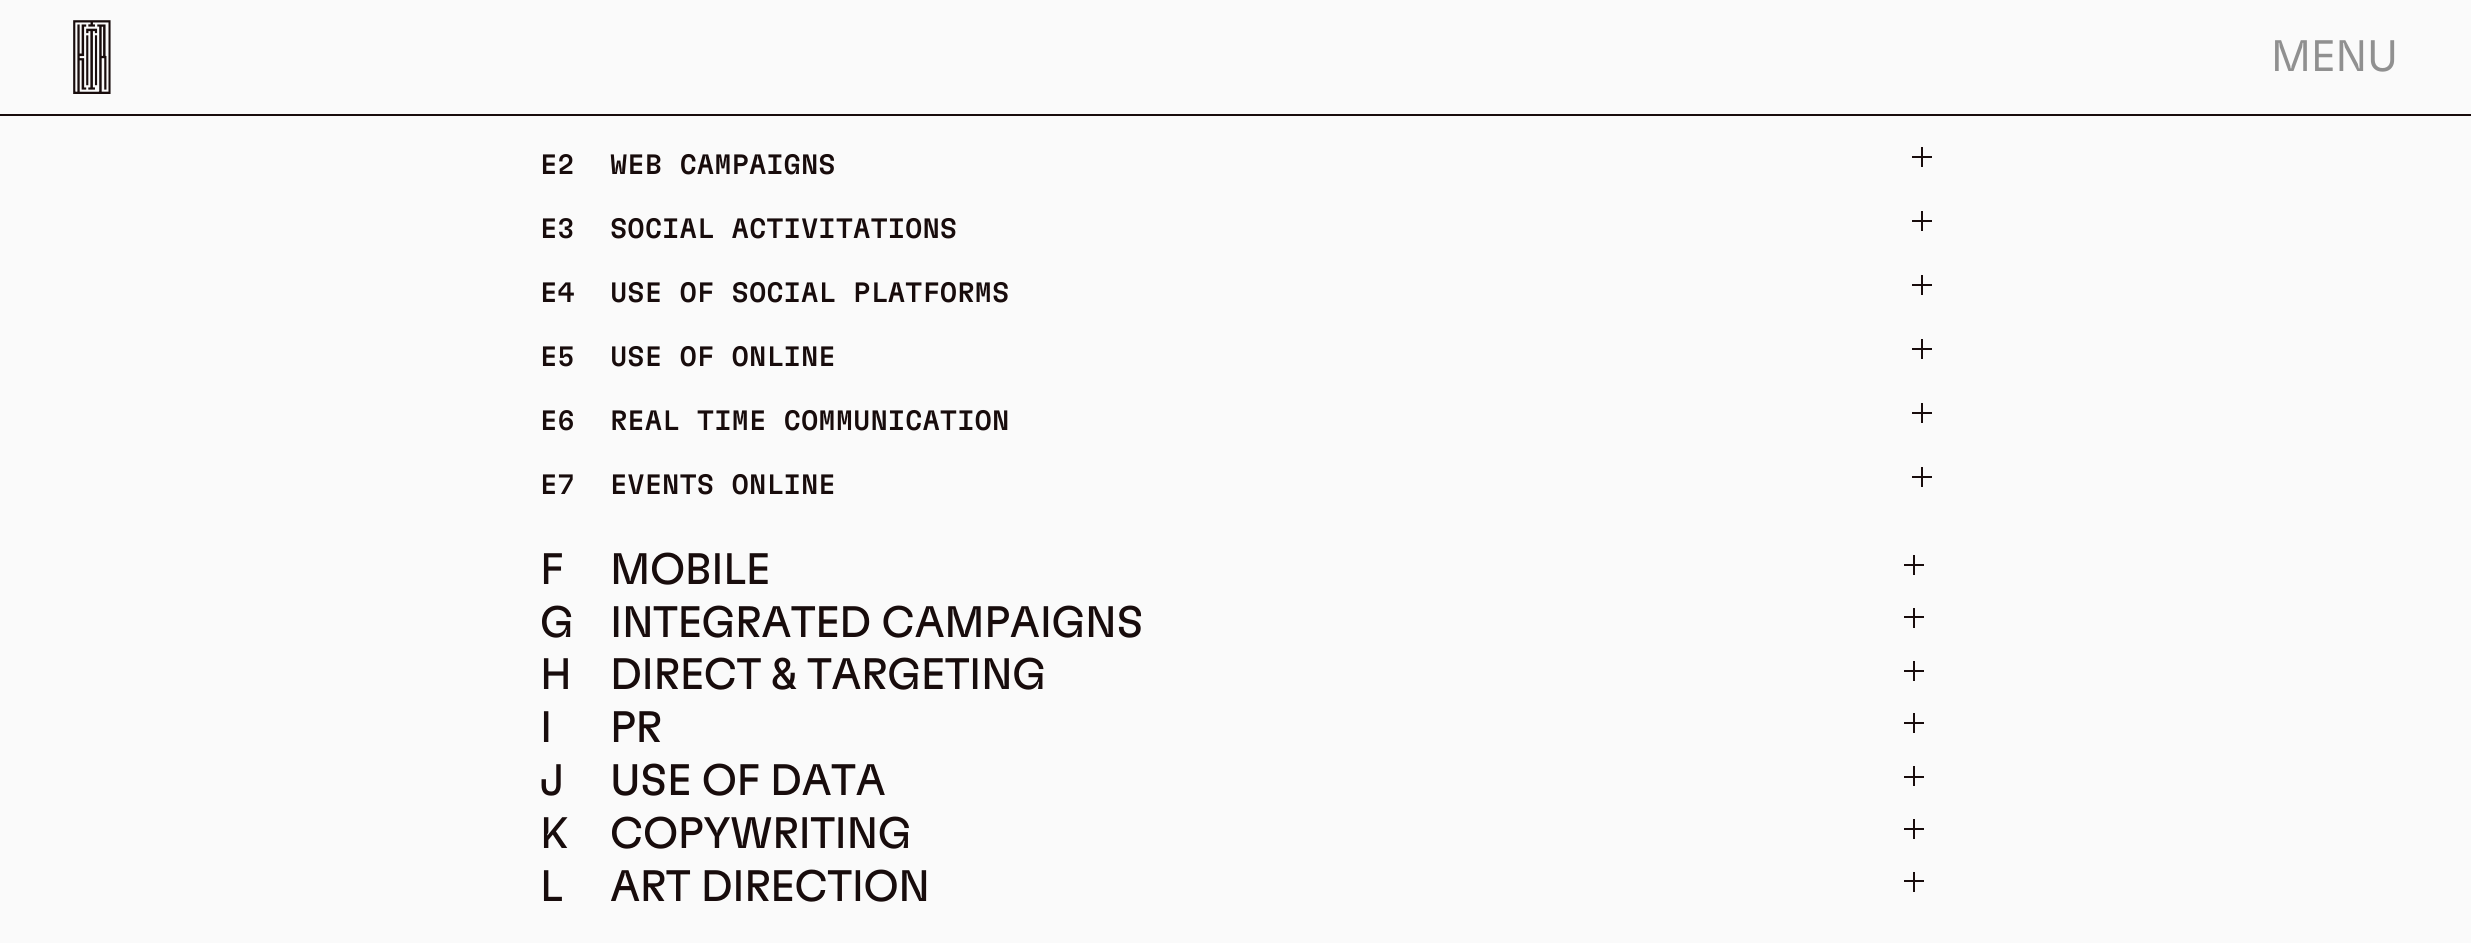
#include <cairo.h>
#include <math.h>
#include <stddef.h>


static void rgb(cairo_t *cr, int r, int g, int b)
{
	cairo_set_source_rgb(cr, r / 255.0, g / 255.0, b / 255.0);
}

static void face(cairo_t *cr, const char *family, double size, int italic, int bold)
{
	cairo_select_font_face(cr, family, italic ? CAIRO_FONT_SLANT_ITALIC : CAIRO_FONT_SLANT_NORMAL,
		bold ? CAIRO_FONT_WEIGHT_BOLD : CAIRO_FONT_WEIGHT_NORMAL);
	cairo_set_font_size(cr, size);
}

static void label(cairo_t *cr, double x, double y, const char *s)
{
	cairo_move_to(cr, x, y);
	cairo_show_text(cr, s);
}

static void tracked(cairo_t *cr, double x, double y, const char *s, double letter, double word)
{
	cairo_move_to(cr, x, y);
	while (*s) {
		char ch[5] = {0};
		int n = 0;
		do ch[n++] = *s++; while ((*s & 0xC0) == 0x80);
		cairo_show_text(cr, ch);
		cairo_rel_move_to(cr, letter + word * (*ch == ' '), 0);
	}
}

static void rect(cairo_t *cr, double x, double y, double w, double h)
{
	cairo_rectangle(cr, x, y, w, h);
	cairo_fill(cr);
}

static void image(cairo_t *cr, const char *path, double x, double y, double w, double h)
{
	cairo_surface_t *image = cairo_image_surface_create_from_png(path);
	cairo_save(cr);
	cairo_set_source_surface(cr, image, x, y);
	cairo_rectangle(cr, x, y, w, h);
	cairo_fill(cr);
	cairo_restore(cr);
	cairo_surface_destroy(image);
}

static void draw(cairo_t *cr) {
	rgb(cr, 250, 250, 250);
	cairo_paint(cr);
	rgb(cr, 24, 12, 12);
	rect(cr, 0, 114, 2471, 2);
	image(cr, "image0.png", 73, 20, 38, 74);
	face(cr, "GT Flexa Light", 44, 0, 0);
	rgb(cr, 144, 144, 144);
	label(cr, 2271, 71, "MENU");
	face(cr, "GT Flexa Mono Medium", 28, 0, 0);
	rgb(cr, 24, 12, 12);
	label(cr, 540, 174, "E2");
	label(cr, 610, 174, "WEB CAMPAIGNS");
	rect(cr, 1912, 156, 20, 2);
	rect(cr, 1921, 147, 2, 20);
	label(cr, 540, 238, "E3");
	label(cr, 610, 238, "SOCIAL ACTIVITATIONS");
	rect(cr, 1912, 220, 20, 2);
	rect(cr, 1921, 211, 2, 20);
	label(cr, 540, 302, "E4");
	label(cr, 610, 302, "USE OF SOCIAL PLATFORMS");
	rect(cr, 1912, 284, 20, 2);
	rect(cr, 1921, 275, 2, 20);
	label(cr, 540, 366, "E5");
	label(cr, 610, 366, "USE OF ONLINE");
	rect(cr, 1912, 348, 20, 2);
	rect(cr, 1921, 339, 2, 20);
	label(cr, 540, 430, "E6");
	label(cr, 610, 430, "REAL TIME COMMUNICATION");
	rect(cr, 1912, 412, 20, 2);
	rect(cr, 1921, 403, 2, 20);
	label(cr, 540, 494, "E7");
	label(cr, 610, 494, "EVENTS ONLINE");
	rect(cr, 1912, 476, 20, 2);
	rect(cr, 1921, 467, 2, 20);
	face(cr, "GT Flexa", 44, 0, 0);
	tracked(cr, 540, 584, "F", -0.4, 0);
	tracked(cr, 610, 584, "MOBILE", -0.4, 0);
	rect(cr, 1904, 564, 20, 2);
	rect(cr, 1913, 555, 2, 20);
	tracked(cr, 540, 637, "G", -0.4, 0);
	tracked(cr, 610, 637, "INTEGRATED CAMPAIGNS", -0.4, 0);
	rect(cr, 1904, 616, 20, 2);
	rect(cr, 1913, 608, 2, 20);
	tracked(cr, 540, 689, "H", -0.4, 0);
	tracked(cr, 610, 689, "DIRECT & TARGETING", -0.4, 0);
	rect(cr, 1904, 670, 20, 2);
	rect(cr, 1913, 661, 2, 20);
	tracked(cr, 540, 742, "I", -0.4, 0);
	tracked(cr, 610, 742, "PR", -0.4, 0);
	rect(cr, 1904, 722, 20, 2);
	rect(cr, 1913, 713, 2, 20);
	tracked(cr, 540, 795, "J", -0.4, 0);
	tracked(cr, 610, 795, "USE OF DATA", -0.4, 0);
	rect(cr, 1904, 776, 20, 2);
	rect(cr, 1913, 766, 2, 20);
	tracked(cr, 540, 848, "K", -0.4, 0);
	tracked(cr, 610, 848, "COPYWRITING", -0.4, 0);
	rect(cr, 1904, 828, 20, 2);
	rect(cr, 1913, 819, 2, 20);
	tracked(cr, 540, 901, "L", -0.4, 0);
	tracked(cr, 610, 901, "ART DIRECTION", -0.4, 0);
	rect(cr, 1904, 880, 20, 2);
	rect(cr, 1913, 872, 2, 20);
}

int main(void) {
	cairo_surface_t *surface = cairo_image_surface_create(CAIRO_FORMAT_RGB24, 2471, 943);
	cairo_t *cr = cairo_create(surface);
	cairo_font_options_t *options = cairo_font_options_create();
	cairo_font_options_set_hint_metrics(options, CAIRO_HINT_METRICS_OFF);
	cairo_font_options_set_hint_style(options, CAIRO_HINT_STYLE_NONE);
	cairo_set_font_options(cr, options);
	cairo_set_miter_limit(cr, 4);
	draw(cr);
	cairo_surface_write_to_png(surface, "render.png");
	cairo_font_options_destroy(options);
	cairo_destroy(cr);
	cairo_surface_destroy(surface);
	return 0;
}
